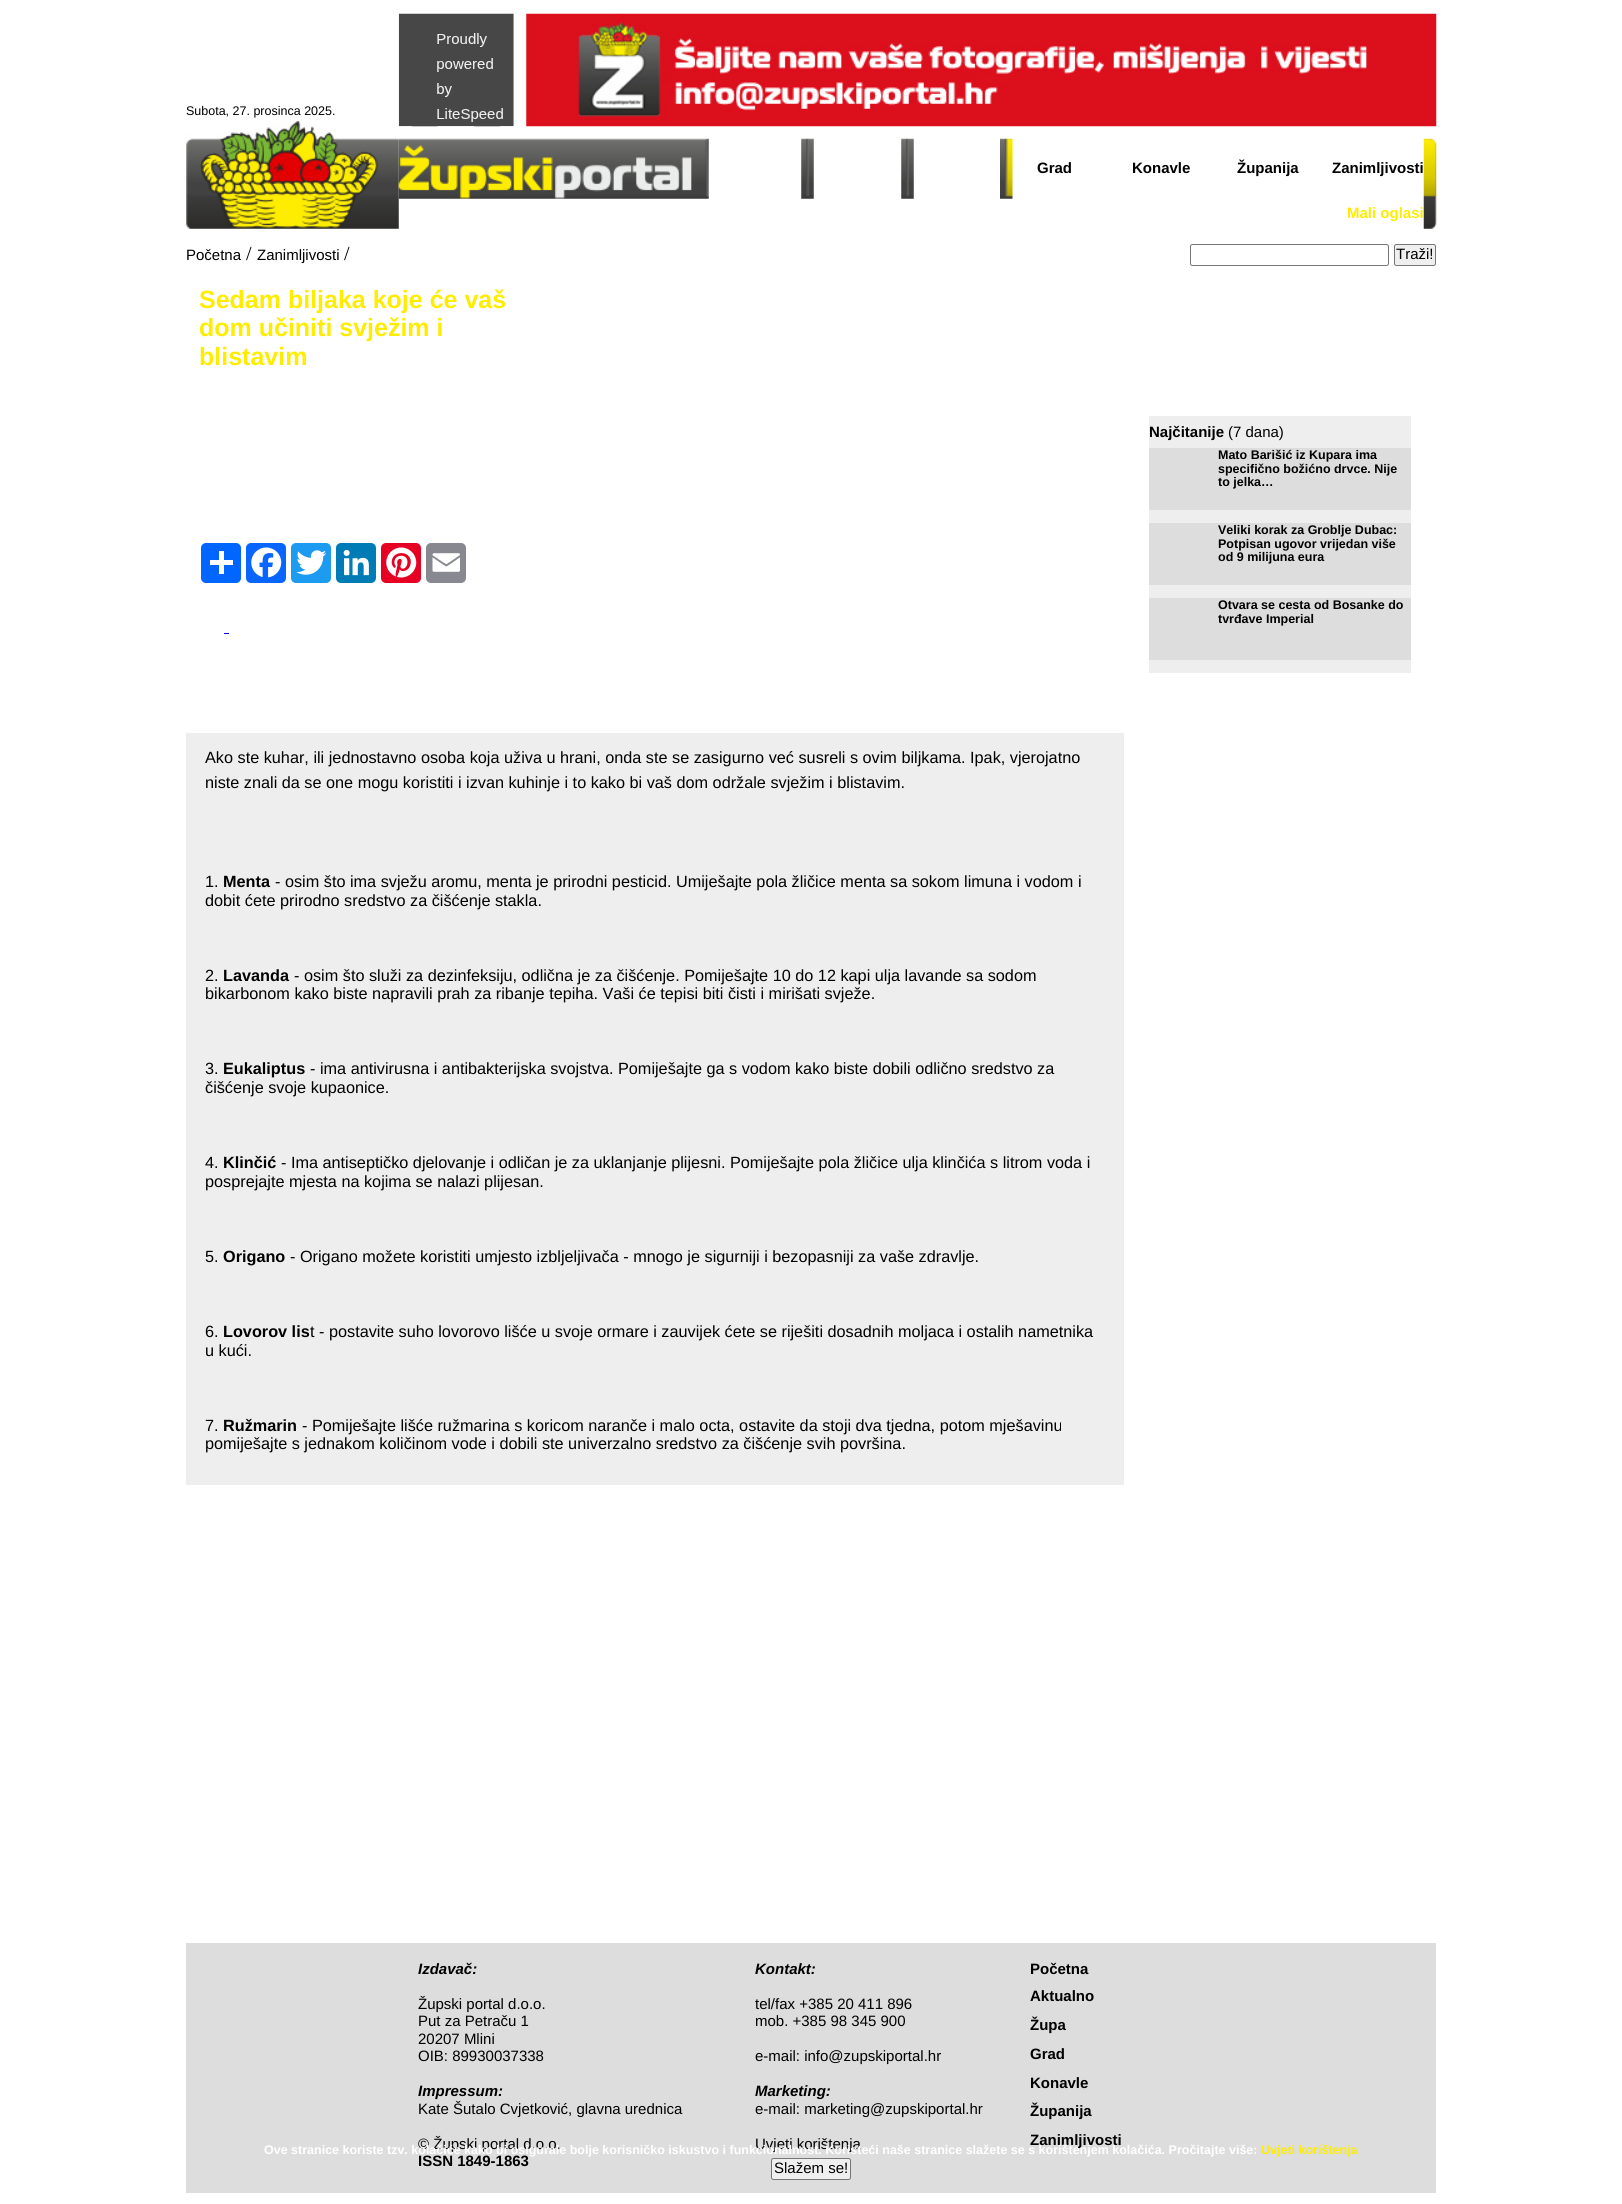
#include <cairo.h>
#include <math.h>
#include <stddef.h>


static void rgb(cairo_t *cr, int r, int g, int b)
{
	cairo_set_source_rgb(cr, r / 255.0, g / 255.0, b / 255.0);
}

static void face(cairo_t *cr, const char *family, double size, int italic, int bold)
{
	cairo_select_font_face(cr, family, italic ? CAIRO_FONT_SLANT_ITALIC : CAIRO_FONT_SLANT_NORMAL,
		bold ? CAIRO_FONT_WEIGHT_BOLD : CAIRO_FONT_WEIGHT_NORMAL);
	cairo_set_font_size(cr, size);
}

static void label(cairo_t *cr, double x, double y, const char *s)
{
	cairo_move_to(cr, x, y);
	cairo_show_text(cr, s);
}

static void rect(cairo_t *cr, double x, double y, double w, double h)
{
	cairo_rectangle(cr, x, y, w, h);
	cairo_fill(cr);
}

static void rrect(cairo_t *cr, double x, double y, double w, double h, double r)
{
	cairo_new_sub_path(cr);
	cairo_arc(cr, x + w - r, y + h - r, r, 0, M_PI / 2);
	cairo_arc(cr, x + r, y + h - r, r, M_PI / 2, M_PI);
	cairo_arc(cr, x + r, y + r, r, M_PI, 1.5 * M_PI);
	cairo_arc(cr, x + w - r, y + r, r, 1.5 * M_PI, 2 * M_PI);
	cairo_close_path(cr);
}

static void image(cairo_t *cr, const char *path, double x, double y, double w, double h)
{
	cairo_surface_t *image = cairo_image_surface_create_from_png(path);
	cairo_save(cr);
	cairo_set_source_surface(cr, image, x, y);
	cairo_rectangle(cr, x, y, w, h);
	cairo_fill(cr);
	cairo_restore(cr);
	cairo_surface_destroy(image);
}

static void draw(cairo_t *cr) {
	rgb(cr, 255, 255, 255);
	cairo_paint(cr);
	face(cr, "Liberation Sans", 12.5, 0, 0);
	rgb(cr, 0, 0, 0);
	label(cr, 186, 115, "Subota, 27. prosinca 2025.");
	image(cr, "image0.png", 186, 121, 213, 108);
	image(cr, "image1.png", 398, 13, 116, 114);
	image(cr, "image2.png", 526, 13, 911, 114);
	image(cr, "image3.png", 398, 138, 311, 61);
	image(cr, "image4.png", 801, 138, 13, 61);
	image(cr, "image4.png", 901, 138, 13, 61);
	image(cr, "image5.png", 1000, 138, 13, 61);
	face(cr, "Liberation Sans", 15, 0, 1);
	label(cr, 1037, 173, "Grad");
	label(cr, 1132, 173, "Konavle");
	label(cr, 1237, 173, "Županija");
	label(cr, 1332, 173, "Zanimljivosti");
	rgb(cr, 254, 237, 0);
	label(cr, 1347, 218, "Mali oglasi");
	image(cr, "image6.png", 1423, 138, 14, 91);
	face(cr, "Liberation Sans", 15, 0, 0);
	rgb(cr, 0, 0, 0);
	label(cr, 186, 260, "Početna");
	face(cr, "Liberation Serif", 20, 0, 0);
	label(cr, 246, 260, "/");
	face(cr, "Liberation Sans", 15, 0, 0);
	label(cr, 257, 260, "Zanimljivosti");
	face(cr, "Liberation Serif", 20, 0, 0);
	label(cr, 344, 260, "/");
	rrect(cr, 1190.5, 244.5, 198, 21, 2);
	rgb(cr, 118, 118, 118);
	cairo_set_line_width(cr, 1);
	cairo_stroke(cr);
	rgb(cr, 239, 239, 239);
	rrect(cr, 1394.5, 244.5, 41, 21, 2);
	cairo_fill_preserve(cr);
	rgb(cr, 118, 118, 118);
	cairo_stroke(cr);
	face(cr, "Liberation Sans", 15, 0, 0);
	rgb(cr, 0, 0, 0);
	label(cr, 1396, 259, "Traži!");
	face(cr, "Liberation Sans", 25, 0, 1);
	rgb(cr, 254, 237, 0);
	label(cr, 199, 308, "Sedam biljaka koje će vaš");
	label(cr, 199, 336, "dom učiniti svježim i");
	label(cr, 199, 365, "blistavim");
	rgb(cr, 1, 102, 255);
	rrect(cr, 201, 543, 40, 40, 5);
	cairo_fill(cr);
	rgb(cr, 255, 255, 255);
	rect(cr, 219, 551, 5, 23);
	rect(cr, 210, 560, 23, 5);
	rgb(cr, 8, 102, 255);
	rrect(cr, 246, 543, 40, 40, 5);
	cairo_fill(cr);
	image(cr, "image7.png", 251, 547, 31, 31);
	rgb(cr, 29, 155, 240);
	rrect(cr, 291, 543, 40, 40, 5);
	cairo_fill(cr);
	image(cr, "image8.png", 296, 550, 31, 25);
	rgb(cr, 0, 123, 181);
	rrect(cr, 336, 543, 40, 40, 5);
	cairo_fill(cr);
	image(cr, "image9.png", 343, 549, 26, 27);
	rgb(cr, 230, 0, 35);
	rrect(cr, 381, 543, 40, 40, 5);
	cairo_fill(cr);
	image(cr, "image10.png", 386, 547, 31, 31);
	rgb(cr, 136, 137, 144);
	rrect(cr, 426, 543, 40, 40, 5);
	cairo_fill(cr);
	image(cr, "image11.png", 432, 553, 28, 19);
	rgb(cr, 0, 0, 238);
	rect(cr, 224, 633, 5, 1);
	rgb(cr, 238, 238, 238);
	rect(cr, 186, 733, 938, 752);
	face(cr, "Liberation Sans", 16.25, 0, 0);
	rgb(cr, 0, 0, 0);
	label(cr, 205, 763, "Ako ste kuhar, ili jednostavno osoba koja uživa u hrani, onda ste se zasigurno već susreli s ovim biljkama. Ipak, vjerojatno");
	label(cr, 205, 788, "niste znali da se one mogu koristiti i izvan kuhinje i to kako bi vaš dom održale svježim i blistavim.");
	label(cr, 205, 887, "1.");
	face(cr, "Liberation Sans", 16.25, 0, 1);
	label(cr, 223, 887, "Menta");
	face(cr, "Liberation Sans", 16.25, 0, 0);
	label(cr, 275, 887, "- osim što ima svježu aromu, menta je prirodni pesticid. Umiješajte pola žličice menta sa sokom limuna i vodom i");
	label(cr, 205, 906, "dobit ćete prirodno sredstvo za čišćenje stakla.");
	label(cr, 205, 981, "2.");
	face(cr, "Liberation Sans", 16.25, 0, 1);
	label(cr, 223, 981, "Lavanda");
	face(cr, "Liberation Sans", 16.25, 0, 0);
	label(cr, 294, 981, "- osim što služi za dezinfeksiju, odlična je za čišćenje. Pomiješajte 10 do 12 kapi ulja lavande sa sodom");
	label(cr, 205, 999, "bikarbonom kako biste napravili prah za ribanje tepiha. Vaši će tepisi biti čisti i mirišati svježe.");
	label(cr, 205, 1074, "3.");
	face(cr, "Liberation Sans", 16.25, 0, 1);
	label(cr, 223, 1074, "Eukaliptus");
	face(cr, "Liberation Sans", 16.25, 0, 0);
	label(cr, 310, 1074, "- ima antivirusna i antibakterijska svojstva. Pomiješajte ga s vodom kako biste dobili odlično sredstvo za");
	label(cr, 205, 1093, "čišćenje svoje kupaonice.");
	label(cr, 205, 1168, "4.");
	face(cr, "Liberation Sans", 16.25, 0, 1);
	label(cr, 223, 1168, "Klinčić");
	face(cr, "Liberation Sans", 16.25, 0, 0);
	label(cr, 281, 1168, "- Ima antiseptičko djelovanje i odličan je za uklanjanje plijesni. Pomiješajte pola žličice ulja klinčića s litrom voda i");
	label(cr, 205, 1187, "posprejajte mjesta na kojima se nalazi plijesan.");
	label(cr, 205, 1262, "5.");
	face(cr, "Liberation Sans", 16.25, 0, 1);
	label(cr, 223, 1262, "Origano");
	face(cr, "Liberation Sans", 16.25, 0, 0);
	label(cr, 290, 1262, "- Origano možete koristiti umjesto izbljeljivača - mnogo je sigurniji i bezopasniji za vaše zdravlje.");
	label(cr, 205, 1337, "6.");
	face(cr, "Liberation Sans", 16.25, 0, 1);
	label(cr, 223, 1337, "Lovorov lis");
	face(cr, "Liberation Sans", 16.25, 0, 0);
	label(cr, 310, 1337, "t - postavite suho lovorovo lišće u svoje ormare i zauvijek ćete se riješiti dosadnih moljaca i ostalih nametnika");
	label(cr, 205, 1356, "u kući.");
	label(cr, 205, 1431, "7.");
	face(cr, "Liberation Sans", 16.25, 0, 1);
	label(cr, 223, 1431, "Ružmarin");
	face(cr, "Liberation Sans", 16.25, 0, 0);
	label(cr, 302, 1431, "- Pomiješajte lišće ružmarina s koricom naranče i malo octa, ostavite da stoji dva tjedna, potom mješavinu");
	label(cr, 205, 1449, "pomiješajte s jednakom količinom vode i dobili ste univerzalno sredstvo za čišćenje svih površina.");
	rgb(cr, 238, 238, 238);
	rect(cr, 1149, 416, 262, 257);
	face(cr, "Liberation Sans", 15, 0, 1);
	rgb(cr, 0, 0, 0);
	label(cr, 1149, 437, "Najčitanije");
	face(cr, "Liberation Sans", 15, 0, 0);
	label(cr, 1228, 437, "(7 dana)");
	rgb(cr, 221, 221, 221);
	rect(cr, 1149, 448, 262, 62);
	face(cr, "Liberation Sans", 12.5, 0, 1);
	rgb(cr, 0, 0, 0);
	label(cr, 1218, 459, "Mato Barišić iz Kupara ima");
	label(cr, 1218, 473, "specifično božićno drvce. Nije");
	label(cr, 1218, 486, "to jelka…");
	rgb(cr, 221, 221, 221);
	rect(cr, 1149, 523, 262, 62);
	rgb(cr, 0, 0, 0);
	label(cr, 1218, 534, "Veliki korak za Groblje Dubac:");
	label(cr, 1218, 548, "Potpisan ugovor vrijedan više");
	label(cr, 1218, 561, "od 9 milijuna eura");
	rgb(cr, 221, 221, 221);
	rect(cr, 1149, 598, 262, 62);
	rgb(cr, 0, 0, 0);
	label(cr, 1218, 609, "Otvara se cesta od Bosanke do");
	label(cr, 1218, 623, "tvrđave Imperial");
	rgb(cr, 221, 221, 221);
	rect(cr, 186, 1943, 1250, 250);
	face(cr, "Liberation Sans", 15, 1, 1);
	rgb(cr, 0, 0, 0);
	label(cr, 418, 1974, "Izdavač:");
	face(cr, "Liberation Sans", 15, 0, 0);
	label(cr, 418, 2009, "Župski portal d.o.o.");
	label(cr, 418, 2026, "Put za Petraču 1");
	label(cr, 418, 2044, "20207 Mlini");
	label(cr, 418, 2061, "OIB: 89930037338");
	face(cr, "Liberation Sans", 15, 1, 1);
	label(cr, 418, 2096, "Impressum:");
	face(cr, "Liberation Sans", 15, 0, 0);
	label(cr, 418, 2114, "Kate Šutalo Cvjetković, glavna urednica");
	label(cr, 418, 2149, "© Župski portal d.o.o.");
	face(cr, "Liberation Sans", 15, 0, 1);
	label(cr, 418, 2166, "ISSN 1849-1863");
	face(cr, "Liberation Sans", 15, 1, 1);
	label(cr, 755, 1974, "Kontakt:");
	face(cr, "Liberation Sans", 15, 0, 0);
	label(cr, 755, 2009, "tel/fax +385 20 411 896");
	label(cr, 755, 2026, "mob. +385 98 345 900");
	label(cr, 755, 2061, "e-mail: info@zupskiportal.hr");
	face(cr, "Liberation Sans", 15, 1, 1);
	label(cr, 755, 2096, "Marketing:");
	face(cr, "Liberation Sans", 15, 0, 0);
	label(cr, 755, 2114, "e-mail: marketing@zupskiportal.hr");
	label(cr, 755, 2149, "Uvjeti korištenja");
	face(cr, "Liberation Sans", 15, 0, 1);
	label(cr, 1030, 1974, "Početna");
	label(cr, 1030, 2001, "Aktualno");
	label(cr, 1030, 2030, "Župa");
	label(cr, 1030, 2059, "Grad");
	label(cr, 1030, 2088, "Konavle");
	label(cr, 1030, 2116, "Županija");
	label(cr, 1030, 2145, "Zanimljivosti");
	face(cr, "Liberation Sans", 12.5, 0, 1);
	rgb(cr, 255, 255, 255);
	label(cr, 264, 2154, "Ove stranice koriste tzv. kolačiće kako bi osigurale bolje korisničko iskustvo i funkcionalnost. Koristeći naše stranice slažete se s korištenjem kolačića. Pročitajte više:");
	rgb(cr, 254, 237, 0);
	label(cr, 1261, 2154, "Uvjeti korištenja");
	rgb(cr, 239, 239, 239);
	rrect(cr, 771.5, 2158.5, 79, 21, 2);
	cairo_fill_preserve(cr);
	rgb(cr, 118, 118, 118);
	cairo_stroke(cr);
	face(cr, "Liberation Sans", 15, 0, 0);
	rgb(cr, 0, 0, 0);
	label(cr, 774, 2173, "Slažem se!");
}

int main(void) {
	cairo_surface_t *surface = cairo_image_surface_create(CAIRO_FORMAT_RGB24, 1622, 2204);
	cairo_t *cr = cairo_create(surface);
	cairo_font_options_t *options = cairo_font_options_create();
	cairo_font_options_set_hint_metrics(options, CAIRO_HINT_METRICS_OFF);
	cairo_font_options_set_hint_style(options, CAIRO_HINT_STYLE_NONE);
	cairo_set_font_options(cr, options);
	cairo_set_miter_limit(cr, 4);
	draw(cr);
	cairo_surface_write_to_png(surface, "render.png");
	cairo_font_options_destroy(options);
	cairo_destroy(cr);
	cairo_surface_destroy(surface);
	return 0;
}
